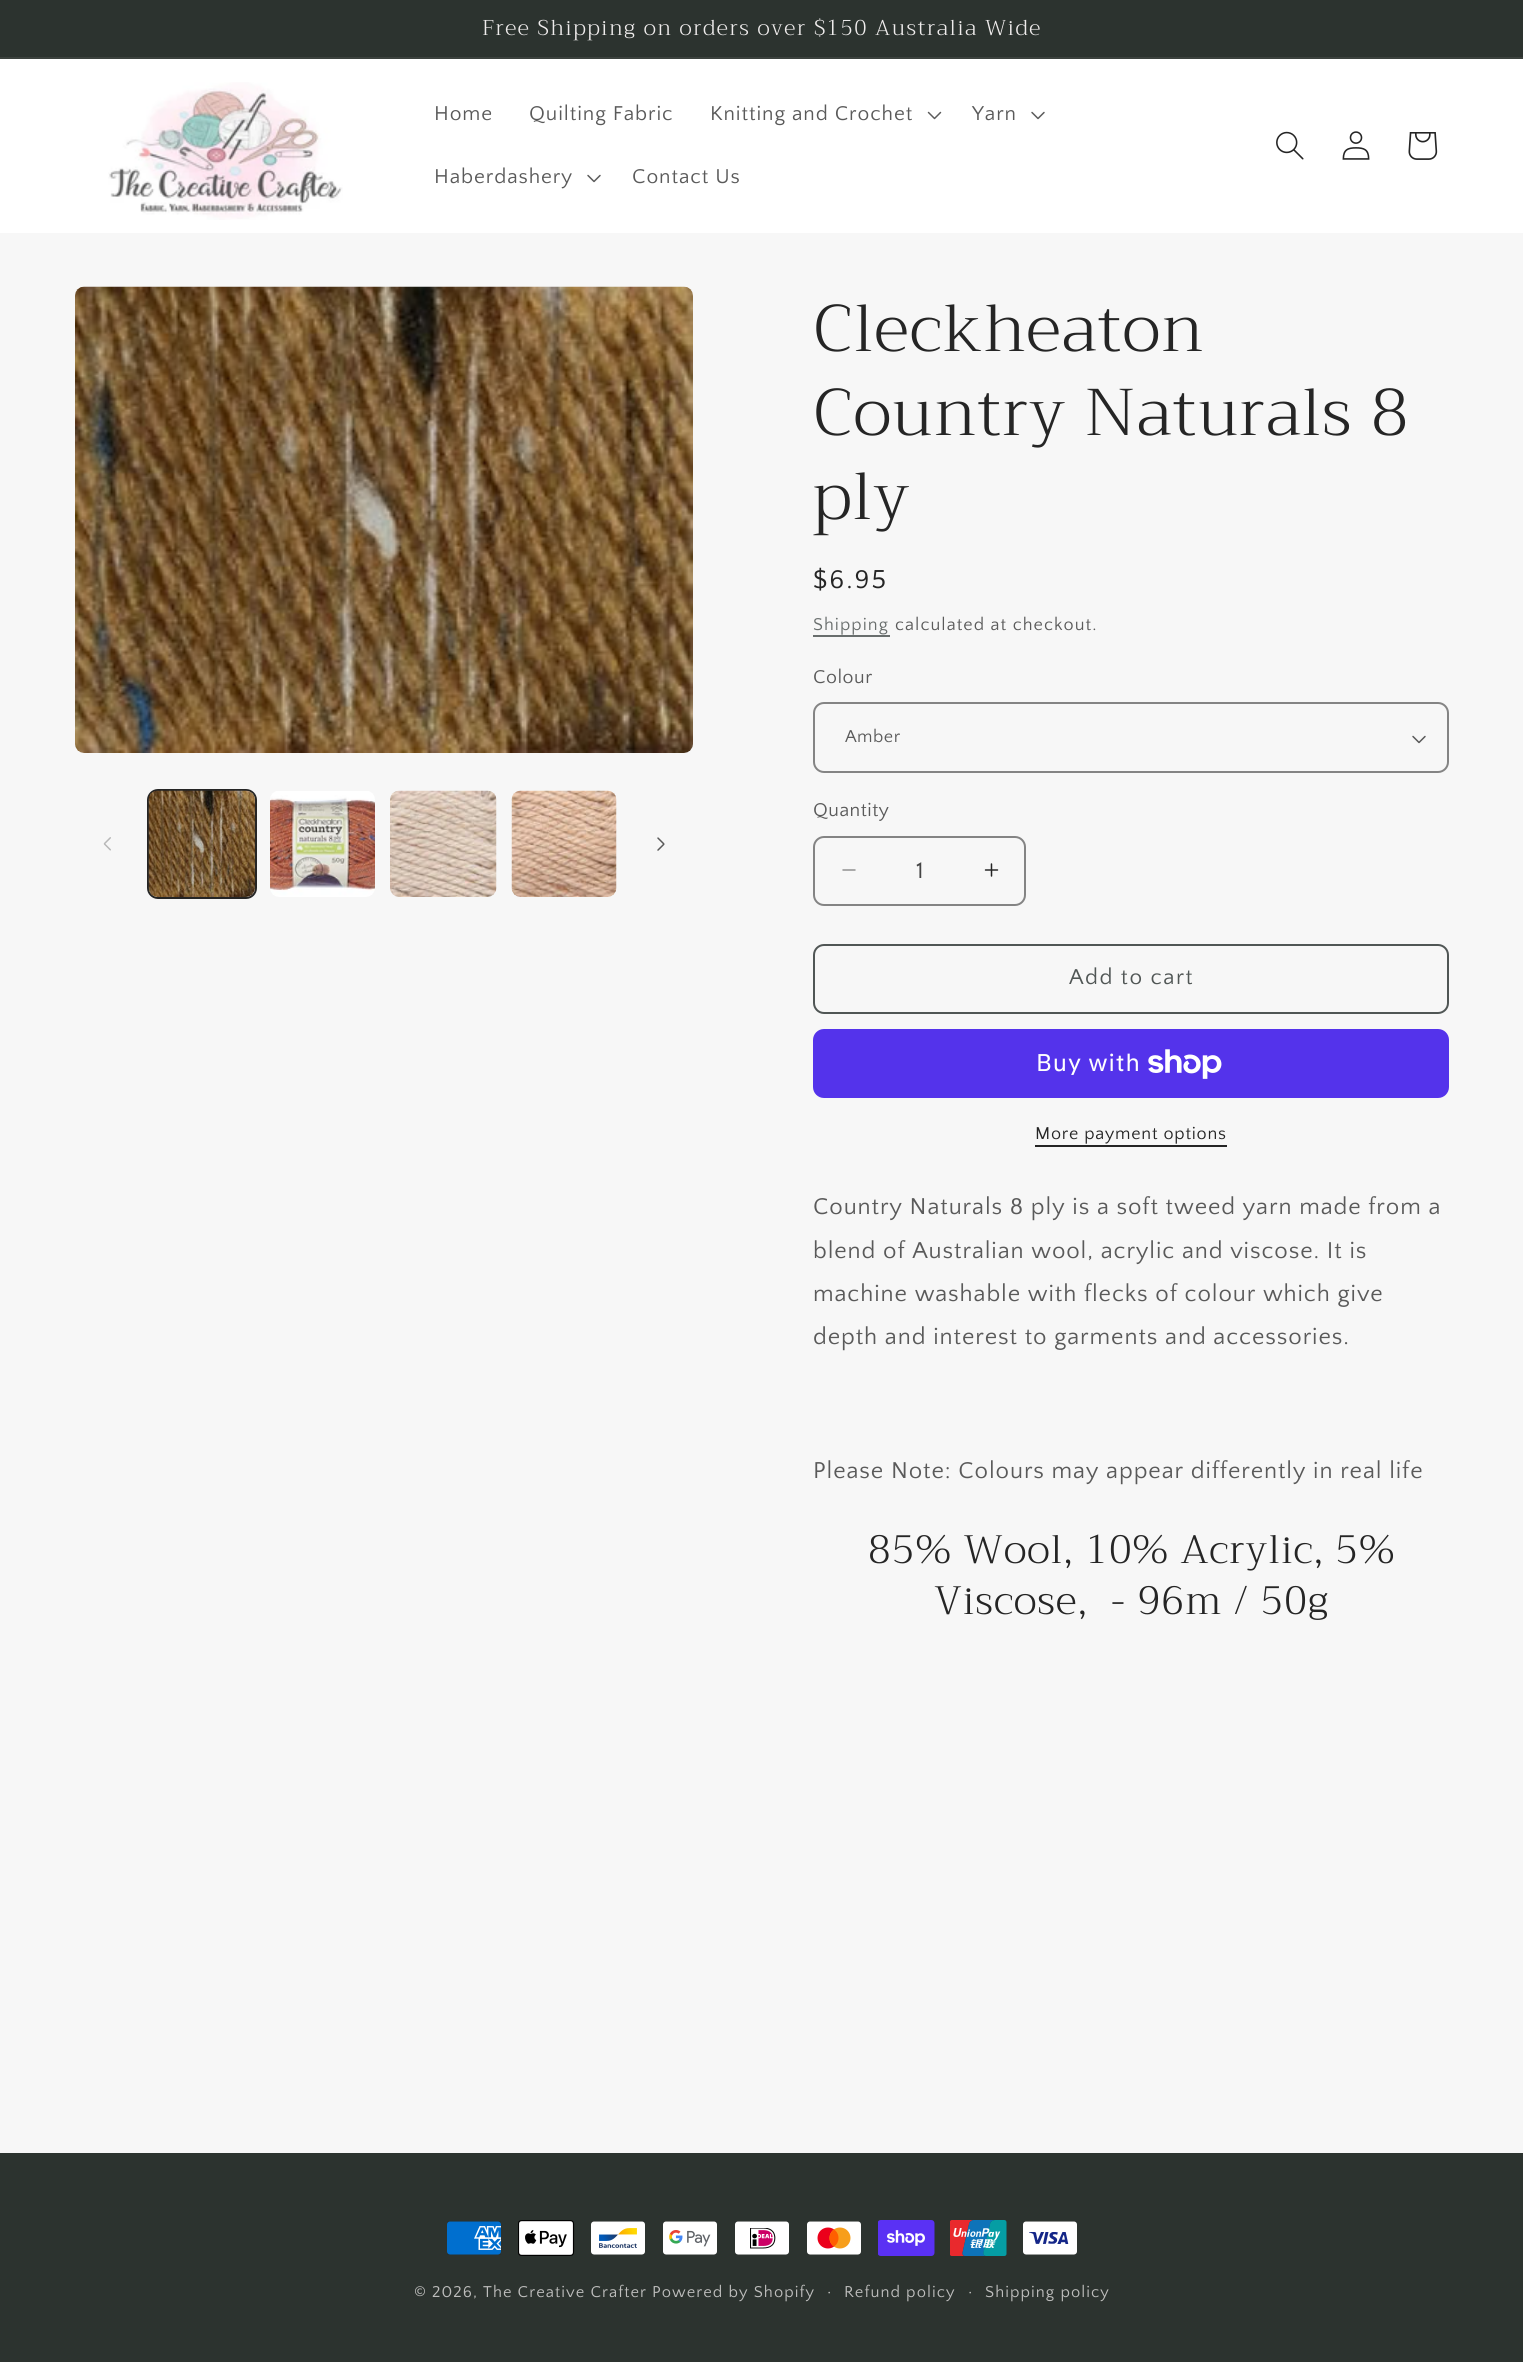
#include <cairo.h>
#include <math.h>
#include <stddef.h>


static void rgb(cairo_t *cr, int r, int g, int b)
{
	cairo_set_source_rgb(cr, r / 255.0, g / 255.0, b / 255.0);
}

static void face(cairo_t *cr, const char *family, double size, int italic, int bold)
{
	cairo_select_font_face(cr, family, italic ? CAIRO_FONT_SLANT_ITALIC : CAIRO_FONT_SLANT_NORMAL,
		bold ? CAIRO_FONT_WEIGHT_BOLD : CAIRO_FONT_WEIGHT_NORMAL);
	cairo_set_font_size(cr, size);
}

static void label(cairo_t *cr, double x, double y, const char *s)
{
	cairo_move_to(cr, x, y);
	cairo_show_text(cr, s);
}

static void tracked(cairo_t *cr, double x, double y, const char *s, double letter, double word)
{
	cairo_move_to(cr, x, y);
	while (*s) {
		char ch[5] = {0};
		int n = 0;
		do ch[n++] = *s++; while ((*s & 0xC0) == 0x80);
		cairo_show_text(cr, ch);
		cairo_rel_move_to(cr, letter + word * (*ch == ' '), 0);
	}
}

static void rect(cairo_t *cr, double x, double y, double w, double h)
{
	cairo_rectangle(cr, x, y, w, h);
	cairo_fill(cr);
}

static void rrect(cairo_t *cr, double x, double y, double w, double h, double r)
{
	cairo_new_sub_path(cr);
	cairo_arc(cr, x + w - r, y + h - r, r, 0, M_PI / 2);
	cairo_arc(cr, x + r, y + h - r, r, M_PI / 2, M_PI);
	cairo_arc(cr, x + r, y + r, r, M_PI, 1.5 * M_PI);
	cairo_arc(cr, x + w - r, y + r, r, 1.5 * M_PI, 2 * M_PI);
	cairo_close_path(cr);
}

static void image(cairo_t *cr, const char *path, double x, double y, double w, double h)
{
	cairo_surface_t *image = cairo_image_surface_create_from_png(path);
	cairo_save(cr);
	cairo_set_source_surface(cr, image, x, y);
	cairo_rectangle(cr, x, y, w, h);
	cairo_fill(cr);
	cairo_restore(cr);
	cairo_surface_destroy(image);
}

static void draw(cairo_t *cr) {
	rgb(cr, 247, 247, 247);
	cairo_paint(cr);
	rgb(cr, 44, 51, 47);
	rect(cr, 0, 0, 1523, 57);
	rgb(cr, 60, 66, 62);
	rect(cr, 0, 57, 1523, 2);
	face(cr, "Trirong Light", 21.45, 0, 0);
	rgb(cr, 239, 236, 236);
	tracked(cr, 482, 35, "Free Shipping on orders over $150 Australia Wide", 1.5, 0);
	rgb(cr, 255, 255, 255);
	rect(cr, 0, 59, 1523, 174);
	image(cr, "image0.png", 108, 82, 235, 138);
	face(cr, "Quattrocento Sans", 21, 0, 0);
	rgb(cr, 90, 90, 90);
	tracked(cr, 434, 120, "Home", 0.9, 0);
	tracked(cr, 529, 120, "Quilting Fabric", 0.9, 0);
	tracked(cr, 710, 120, "Knitting and Crochet", 0.9, 0);
	image(cr, "image1.png", 927, 111, 15, 9);
	tracked(cr, 972, 120, "Yarn", 0.9, 0);
	image(cr, "image2.png", 1031, 111, 14, 9);
	tracked(cr, 434, 183, "Haberdashery", 0.9, 0);
	image(cr, "image2.png", 587, 174, 14, 9);
	tracked(cr, 632, 183, "Contact Us", 0.9, 0);
	image(cr, "image3.png", 1276, 131, 28, 29);
	image(cr, "image4.png", 1342, 131, 28, 29);
	image(cr, "image5.png", 1408, 132, 30, 28);
	image(cr, "image6.png", 75, 286, 618, 467);
	image(cr, "image7.png", 103, 837, 8, 14);
	rrect(cr, 148, 790, 108, 108, 10);
	rgb(cr, 37, 37, 37);
	cairo_stroke(cr);
	image(cr, "image8.png", 148, 790, 107, 107);
	image(cr, "image9.png", 270, 791, 105, 106);
	image(cr, "image10.png", 390, 790, 107, 107);
	image(cr, "image11.png", 511, 790, 106, 107);
	image(cr, "image12.png", 657, 837, 8, 14);
	face(cr, "Trirong Light", 66, 0, 0);
	tracked(cr, 813, 351, "Cleckheaton", 1, 0);
	tracked(cr, 813, 435, "Country Naturals 8", 1, 0);
	tracked(cr, 813, 519, "ply", 1, 0);
	face(cr, "Quattrocento Sans", 27, 0, 0);
	tracked(cr, 813, 588, "$6.95", 2, 0);
	face(cr, "Quattrocento Sans", 18, 0, 0);
	rgb(cr, 105, 110, 109);
	tracked(cr, 813, 630, "Shipping", 1.05, 0);
	rect(cr, 813, 635, 77, 2);
	rgb(cr, 90, 90, 90);
	tracked(cr, 895, 630, "calculated at checkout.", 1.05, 0);
	face(cr, "Quattrocento Sans", 19.5, 0, 0);
	tracked(cr, 813, 683, "Colour", 0.5, 0);
	image(cr, "image13.png", 1412, 735, 14, 9);
	rrect(cr, 814, 703, 634, 69, 10);
	rgb(cr, 132, 132, 132);
	cairo_stroke(cr);
	face(cr, "Quattrocento Sans", 18, 0, 0);
	rgb(cr, 90, 90, 90);
	tracked(cr, 845, 742, "Amber", 0.5, 0);
	face(cr, "Quattrocento Sans", 19.5, 0, 0);
	tracked(cr, 813, 816, "Quantity", 0.5, 0);
	image(cr, "image14.png", 842, 869, 14, 2);
	image(cr, "image15.png", 984, 863, 15, 14);
	rrect(cr, 814, 837, 211, 68, 10);
	rgb(cr, 132, 132, 132);
	cairo_stroke(cr);
	face(cr, "Quattrocento Sans", 24, 0, 0);
	rgb(cr, 69, 69, 69);
	label(cr, 916, 878, "1");
	rrect(cr, 814, 945, 634, 68, 10);
	rgb(cr, 80, 86, 85);
	cairo_stroke(cr);
	face(cr, "Quattrocento Sans", 22.5, 0, 0);
	tracked(cr, 1069, 984, "Add to cart", 1.5, 0);
	rgb(cr, 84, 51, 235);
	rrect(cr, 813, 1029, 636, 69, 11);
	cairo_fill(cr);
	face(cr, "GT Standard", 24, 0, 0);
	rgb(cr, 255, 255, 255);
	tracked(cr, 1036, 1071, "Buy with", 0.9, 0);
	image(cr, "image16.png", 1148, 1049, 74, 30);
	face(cr, "Quattrocento Sans", 18, 0, 0);
	rgb(cr, 37, 37, 37);
	tracked(cr, 1035, 1139, "More payment options", 0.75, 0);
	rect(cr, 1035, 1145, 192, 2);
	face(cr, "Quattrocento Sans", 24, 0, 0);
	rgb(cr, 90, 90, 90);
	tracked(cr, 813, 1214, "Country Naturals 8 ply is a soft tweed yarn made from a", 0.9, 0);
	tracked(cr, 813, 1258, "blend of Australian wool, acrylic and viscose. It is", 0.9, 0);
	tracked(cr, 813, 1301, "machine washable with flecks of colour which give", 0.9, 0);
	tracked(cr, 813, 1344, "depth and interest to garments and accessories.", 0.9, 0);
	tracked(cr, 813, 1478, "Please Note: Colours may appear differently in real life", 0.9, 0);
	face(cr, "Trirong Light", 39.6, 0, 0);
	rgb(cr, 37, 37, 37);
	tracked(cr, 868, 1563, "85% Wool, 10% Acrylic, 5%", 1, 0);
	tracked(cr, 934, 1614, "Viscose,  - 96m / 50g", 1, 0);
	rgb(cr, 44, 51, 47);
	rect(cr, 0, 2153, 1523, 209);
	image(cr, "image17.png", 447, 2221, 54, 34);
	image(cr, "image18.png", 518, 2220, 57, 36);
	image(cr, "image19.png", 591, 2221, 54, 34);
	image(cr, "image20.png", 663, 2221, 54, 34);
	image(cr, "image21.png", 735, 2221, 54, 34);
	image(cr, "image22.png", 807, 2221, 54, 34);
	image(cr, "image23.png", 878, 2220, 57, 36);
	image(cr, "image24.png", 950, 2220, 57, 36);
	image(cr, "image25.png", 1023, 2221, 54, 34);
	face(cr, "Quattrocento Sans", 16.5, 0, 0);
	rgb(cr, 190, 190, 189);
	tracked(cr, 414, 2297, "© 2026, The Creative Crafter Powered by Shopify", 1.05, 0);
	face(cr, "Quattrocento Sans", 18, 0, 0);
	tracked(cr, 827, 2297, "·", 1.05, 0);
	face(cr, "Quattrocento Sans", 16.5, 0, 0);
	tracked(cr, 844, 2297, "Refund policy", 1.05, 0);
	face(cr, "Quattrocento Sans", 18, 0, 0);
	tracked(cr, 968, 2297, "·", 1.05, 0);
	face(cr, "Quattrocento Sans", 16.5, 0, 0);
	tracked(cr, 985, 2297, "Shipping policy", 1.05, 0);
}

int main(void) {
	cairo_surface_t *surface = cairo_image_surface_create(CAIRO_FORMAT_RGB24, 1523, 2362);
	cairo_t *cr = cairo_create(surface);
	cairo_font_options_t *options = cairo_font_options_create();
	cairo_font_options_set_hint_metrics(options, CAIRO_HINT_METRICS_OFF);
	cairo_font_options_set_hint_style(options, CAIRO_HINT_STYLE_NONE);
	cairo_set_font_options(cr, options);
	cairo_set_miter_limit(cr, 4);
	draw(cr);
	cairo_surface_write_to_png(surface, "render.png");
	cairo_font_options_destroy(options);
	cairo_destroy(cr);
	cairo_surface_destroy(surface);
	return 0;
}
